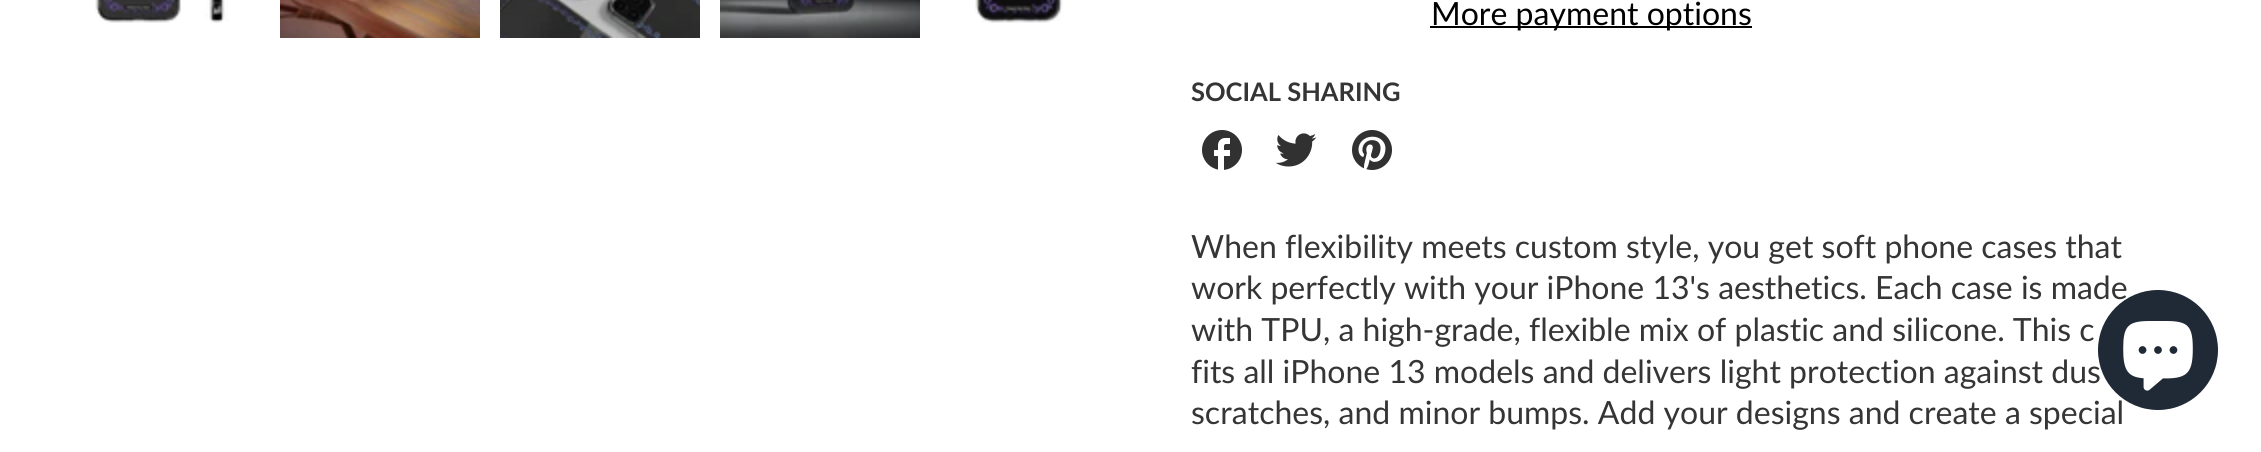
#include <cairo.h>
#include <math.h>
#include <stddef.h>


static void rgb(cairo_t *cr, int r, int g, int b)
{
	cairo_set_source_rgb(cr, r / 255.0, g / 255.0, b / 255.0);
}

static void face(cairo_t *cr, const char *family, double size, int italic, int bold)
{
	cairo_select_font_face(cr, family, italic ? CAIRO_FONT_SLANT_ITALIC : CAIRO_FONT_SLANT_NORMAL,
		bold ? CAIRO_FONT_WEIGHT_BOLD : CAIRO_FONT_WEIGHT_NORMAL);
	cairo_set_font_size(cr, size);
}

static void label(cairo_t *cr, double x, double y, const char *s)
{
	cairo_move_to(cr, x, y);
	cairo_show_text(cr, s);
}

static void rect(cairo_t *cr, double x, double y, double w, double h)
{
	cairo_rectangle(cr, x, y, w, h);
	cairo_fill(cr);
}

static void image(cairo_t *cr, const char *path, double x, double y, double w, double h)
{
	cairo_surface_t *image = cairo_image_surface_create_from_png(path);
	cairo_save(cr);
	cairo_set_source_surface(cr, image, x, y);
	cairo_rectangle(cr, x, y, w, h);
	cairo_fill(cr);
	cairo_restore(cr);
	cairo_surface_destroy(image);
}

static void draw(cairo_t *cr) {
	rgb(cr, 255, 255, 255);
	cairo_paint(cr);
	image(cr, "image0.png", 95, 0, 133, 23);
	image(cr, "image1.png", 280, 0, 200, 38);
	image(cr, "image2.png", 500, 0, 200, 38);
	image(cr, "image3.png", 720, 0, 200, 38);
	image(cr, "image4.png", 975, 0, 88, 23);
	rgb(cr, 0, 0, 0);
	rect(cr, 1430, 26, 322, 2);
	face(cr, "Lato", 32, 0, 0);
	label(cr, 1431, 25, "More payment options");
	face(cr, "Lato", 25.5, 0, 1);
	rgb(cr, 54, 53, 53);
	label(cr, 1191, 101, "SOCIAL SHARING");
	image(cr, "image5.png", 1202, 130, 40, 40);
	image(cr, "image6.png", 1275, 133, 42, 34);
	image(cr, "image7.png", 1352, 130, 40, 40);
	face(cr, "Lato", 32, 0, 0);
	label(cr, 1191, 258, "When flexibility meets custom style, you get soft phone cases that");
	label(cr, 1191, 299, "work perfectly with your iPhone 13's aesthetics. Each case is made");
	label(cr, 1191, 341, "with TPU, a high-grade, flexible mix of plastic and silicone. This c");
	label(cr, 1191, 383, "fits all iPhone 13 models and delivers light protection against dus");
	label(cr, 1191, 424, "scratches, and minor bumps. Add your designs and create a special");
	rgb(cr, 32, 42, 54);
	cairo_new_path(cr);
	cairo_arc(cr, 2158, 350, 60, 0, 2 * M_PI);
	cairo_fill(cr);
	image(cr, "image8.png", 2123, 321, 70, 70);
}

int main(void) {
	cairo_surface_t *surface = cairo_image_surface_create(CAIRO_FORMAT_RGB24, 2261, 452);
	cairo_t *cr = cairo_create(surface);
	cairo_font_options_t *options = cairo_font_options_create();
	cairo_font_options_set_hint_metrics(options, CAIRO_HINT_METRICS_OFF);
	cairo_font_options_set_hint_style(options, CAIRO_HINT_STYLE_NONE);
	cairo_set_font_options(cr, options);
	cairo_set_miter_limit(cr, 4);
	draw(cr);
	cairo_surface_write_to_png(surface, "render.png");
	cairo_font_options_destroy(options);
	cairo_destroy(cr);
	cairo_surface_destroy(surface);
	return 0;
}
